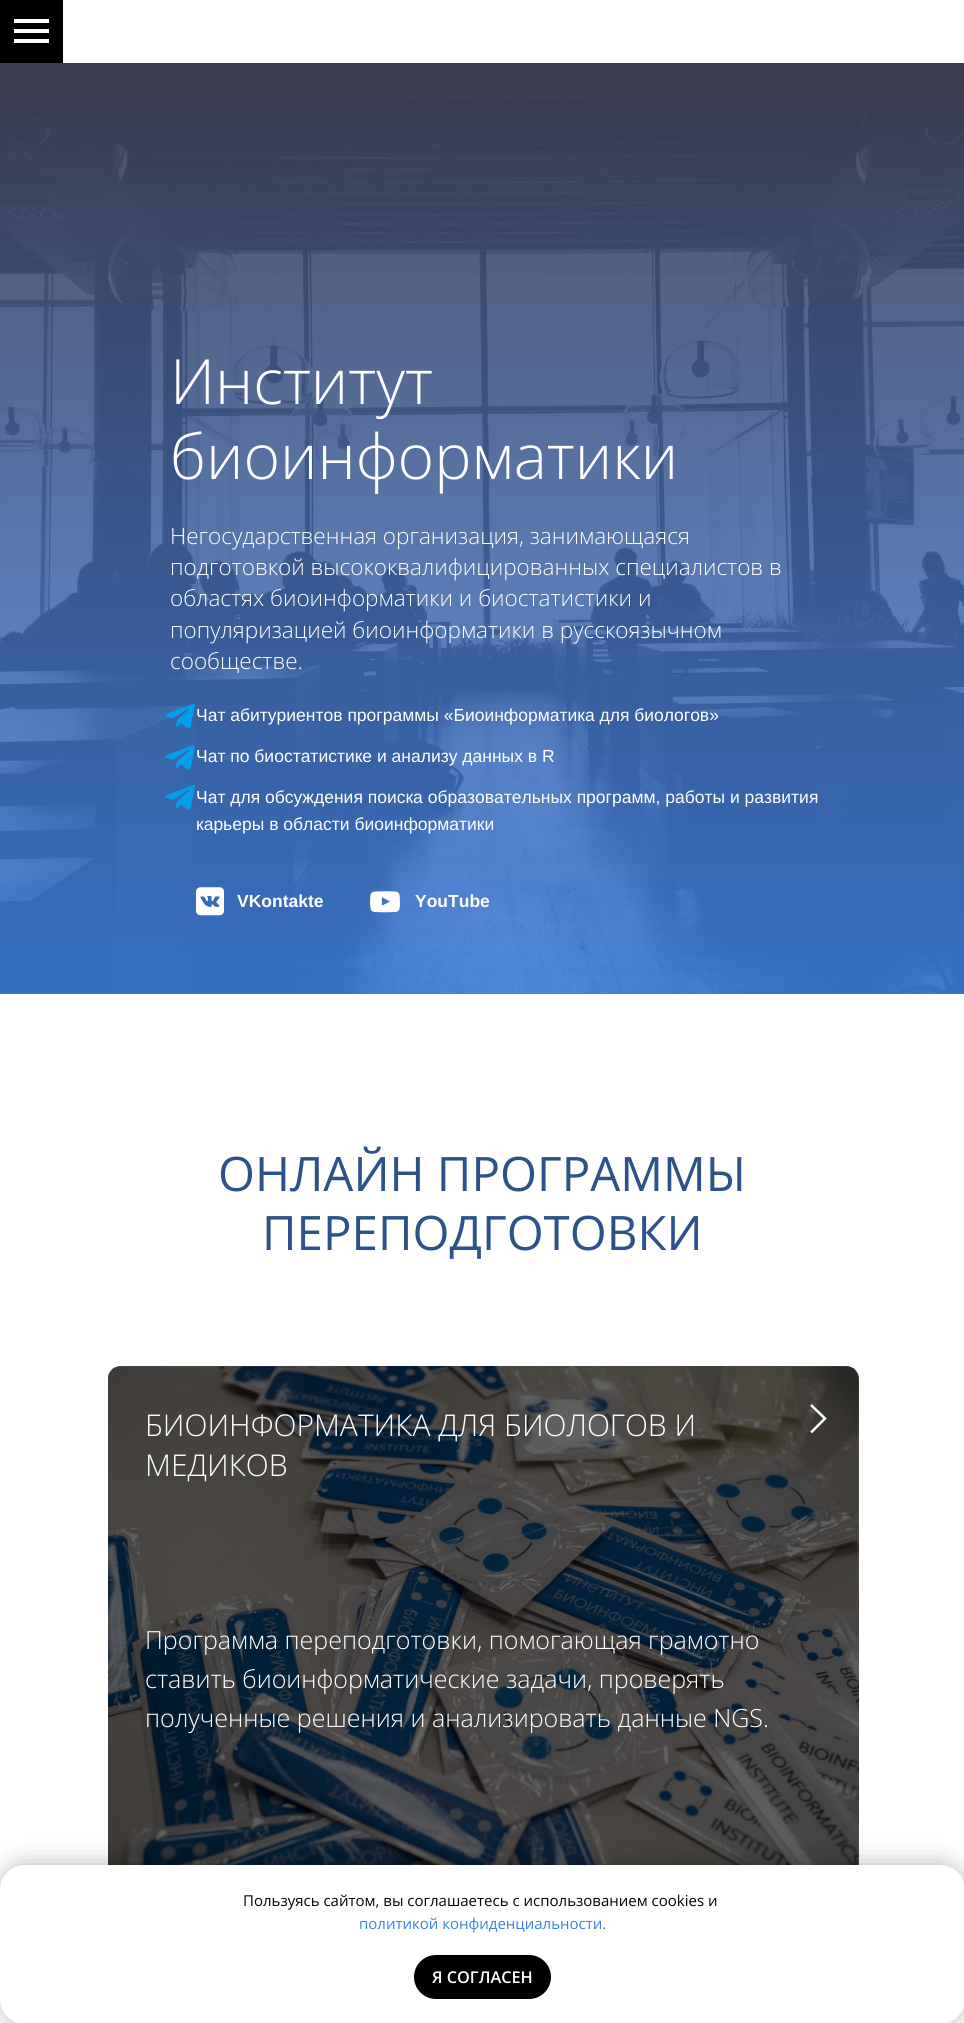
#include <cairo.h>
#include <math.h>
#include <stddef.h>


static void rgb(cairo_t *cr, int r, int g, int b)
{
	cairo_set_source_rgb(cr, r / 255.0, g / 255.0, b / 255.0);
}

static void face(cairo_t *cr, const char *family, double size, int italic, int bold)
{
	cairo_select_font_face(cr, family, italic ? CAIRO_FONT_SLANT_ITALIC : CAIRO_FONT_SLANT_NORMAL,
		bold ? CAIRO_FONT_WEIGHT_BOLD : CAIRO_FONT_WEIGHT_NORMAL);
	cairo_set_font_size(cr, size);
}

static void label(cairo_t *cr, double x, double y, const char *s)
{
	cairo_move_to(cr, x, y);
	cairo_show_text(cr, s);
}

static void rect(cairo_t *cr, double x, double y, double w, double h)
{
	cairo_rectangle(cr, x, y, w, h);
	cairo_fill(cr);
}

static void rrect(cairo_t *cr, double x, double y, double w, double h, double r)
{
	cairo_new_sub_path(cr);
	cairo_arc(cr, x + w - r, y + h - r, r, 0, M_PI / 2);
	cairo_arc(cr, x + r, y + h - r, r, M_PI / 2, M_PI);
	cairo_arc(cr, x + r, y + r, r, M_PI, 1.5 * M_PI);
	cairo_arc(cr, x + w - r, y + r, r, 1.5 * M_PI, 2 * M_PI);
	cairo_close_path(cr);
}

static void soft_shadow(cairo_t *cr, double x, double y, double w, double h, double r, double blur, double alpha)
{
	cairo_push_group_with_content(cr, CAIRO_CONTENT_ALPHA);
	cairo_set_operator(cr, CAIRO_OPERATOR_SOURCE);
	for (int i = 15; i >= -15 && fmin(w, h) + blur * i / 3 > 0; i -= 2) {
		double e = blur * i / 6;
		cairo_set_source_rgba(cr, 0, 0, 0, alpha * erfc((i - 1) / 8.5) / 2);
		rrect(cr, x - e, y - e, w + 2 * e, h + 2 * e, fmax(0, fmin(r + e + blur * .6, fmin(w, h) / 2 + e)));
		cairo_fill(cr);
	}
	cairo_pattern_t *soft = cairo_pop_group(cr);
	cairo_mask(cr, soft);
	cairo_pattern_destroy(soft);
}

static void image(cairo_t *cr, const char *path, double x, double y, double w, double h)
{
	cairo_surface_t *image = cairo_image_surface_create_from_png(path);
	cairo_save(cr);
	cairo_set_source_surface(cr, image, x, y);
	cairo_rectangle(cr, x, y, w, h);
	cairo_fill(cr);
	cairo_restore(cr);
	cairo_surface_destroy(image);
}

static void draw(cairo_t *cr) {
	cairo_pattern_t *gradient;
	rgb(cr, 255, 255, 255);
	cairo_paint(cr);
	rgb(cr, 0, 0, 0);
	rect(cr, 0, 0, 63, 63);
	rgb(cr, 255, 255, 255);
	rect(cr, 14, 19, 35, 4);
	rect(cr, 14, 29, 35, 4);
	rect(cr, 14, 39, 35, 4);
	rgb(cr, 58, 129, 232);
	rect(cr, 0, 993, 964, 1);
	image(cr, "image0.png", 0, 63, 964, 931);
	gradient = cairo_pattern_create_linear(482, 56, 483, 994);
	cairo_pattern_add_color_stop_rgba(gradient, 0, 0.235, 0.235, 0.314, 0.9);
	cairo_pattern_add_color_stop_rgba(gradient, 1, 0.227, 0.506, 0.91, 0.8);
	cairo_set_source(cr, gradient);
	cairo_pattern_destroy(gradient);
	rect(cr, 0, 63, 964, 931);
	face(cr, "Open Sans Light", 62.5, 0, 0);
	rgb(cr, 255, 255, 255);
	label(cr, 170, 404, "Институт");
	label(cr, 170, 479, "биоинформатики");
	face(cr, "Open Sans Light", 22.5, 0, 0);
	label(cr, 170, 544, "Негосударственная организация, занимающаяся");
	label(cr, 170, 575, "подготовкой высококвалифицированных специалистов в");
	label(cr, 170, 606, "областях биоинформатики и биостатистики и");
	label(cr, 170, 638, "популяризацией биоинформатики в русскоязычном");
	label(cr, 170, 669, "сообществе.");
	image(cr, "image1.png", 165, 703, 30, 26);
	face(cr, "Liberation Sans", 17.5, 0, 0);
	label(cr, 196, 721, "Чат абитуриентов программы «Биоинформатика для биологов»");
	image(cr, "image2.png", 165, 745, 30, 25);
	label(cr, 196, 762, "Чат по биостатистике и анализу данных в R");
	image(cr, "image3.png", 165, 785, 30, 25);
	label(cr, 196, 803, "Чат для обсуждения поиска образовательных программ, работы и развития");
	label(cr, 196, 830, "карьеры в области биоинформатики");
	image(cr, "image4.png", 196, 887, 28, 29);
	face(cr, "Liberation Sans", 17.5, 0, 1);
	label(cr, 237, 907, "VKontakte");
	image(cr, "image5.png", 370, 891, 30, 22);
	label(cr, 415, 907, "YouTube");
	face(cr, "Open Sans", 47.5, 0, 0);
	rgb(cr, 45, 82, 138);
	label(cr, 218, 1191, "ОНЛАЙН ПРОГРАММЫ");
	label(cr, 262, 1250, "ПЕРЕПОДГОТОВКИ");
	image(cr, "image6.png", 108, 1366, 751, 499);
	cairo_set_source_rgba(cr, 0, 0, 0, 0.6);
	rrect(cr, 108, 1366, 751, 563, 13);
	cairo_fill(cr);
	face(cr, "Open Sans Light", 30, 0, 0);
	rgb(cr, 255, 255, 255);
	label(cr, 145, 1436, "БИОИНФОРМАТИКА ДЛЯ БИОЛОГОВ И");
	label(cr, 145, 1476, "МЕДИКОВ");
	cairo_new_path(cr);
	cairo_move_to(cr, 811, 1405);
	cairo_line_to(cr, 825, 1418.5);
	cairo_line_to(cr, 811, 1432.5);
	cairo_set_line_width(cr, 2.5);
	cairo_stroke(cr);
	face(cr, "Open Sans Light", 25, 0, 0);
	label(cr, 145, 1649, "Программа переподготовки, помогающая грамотно");
	label(cr, 145, 1688, "ставить биоинформатические задачи, проверять");
	label(cr, 145, 1727, "полученные решения и анализировать данные NGS.");
	rgb(cr, 0, 0, 0);
	soft_shadow(cr, 0, 1865, 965, 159, 25, 12.5, 0.3);
	rgb(cr, 255, 255, 255);
	rrect(cr, 0, 1865, 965, 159, 25);
	cairo_fill(cr);
	face(cr, "Open Sans", 15, 0, 0);
	rgb(cr, 5, 4, 4);
	label(cr, 243, 1906, "Пользуясь сайтом, вы соглашаетесь с использованием cookies и");
	rgb(cr, 58, 129, 232);
	label(cr, 359, 1929, "политикой конфиденциальности.");
	rgb(cr, 0, 0, 0);
	rrect(cr, 414, 1955, 137, 44, 22);
	cairo_fill(cr);
	face(cr, "Open Sans SemiBold", 16.25, 0, 0);
	rgb(cr, 255, 255, 255);
	label(cr, 432, 1983, "Я СОГЛАСЕН");
}

int main(void) {
	cairo_surface_t *surface = cairo_image_surface_create(CAIRO_FORMAT_RGB24, 964, 2023);
	cairo_t *cr = cairo_create(surface);
	cairo_font_options_t *options = cairo_font_options_create();
	cairo_font_options_set_hint_metrics(options, CAIRO_HINT_METRICS_OFF);
	cairo_font_options_set_hint_style(options, CAIRO_HINT_STYLE_NONE);
	cairo_set_font_options(cr, options);
	cairo_set_miter_limit(cr, 4);
	draw(cr);
	cairo_surface_write_to_png(surface, "render.png");
	cairo_font_options_destroy(options);
	cairo_destroy(cr);
	cairo_surface_destroy(surface);
	return 0;
}
